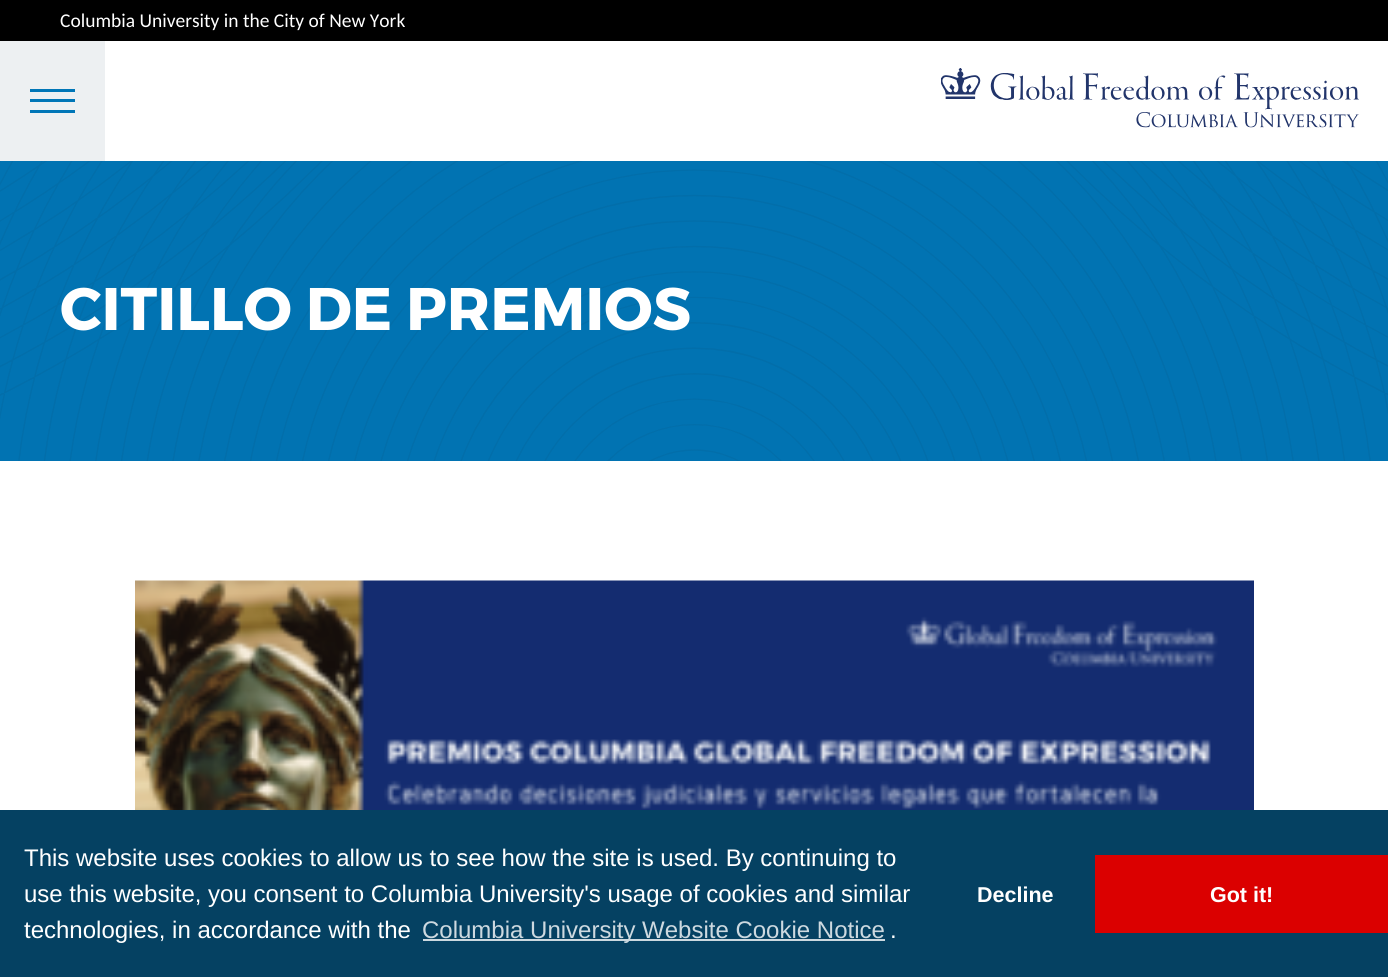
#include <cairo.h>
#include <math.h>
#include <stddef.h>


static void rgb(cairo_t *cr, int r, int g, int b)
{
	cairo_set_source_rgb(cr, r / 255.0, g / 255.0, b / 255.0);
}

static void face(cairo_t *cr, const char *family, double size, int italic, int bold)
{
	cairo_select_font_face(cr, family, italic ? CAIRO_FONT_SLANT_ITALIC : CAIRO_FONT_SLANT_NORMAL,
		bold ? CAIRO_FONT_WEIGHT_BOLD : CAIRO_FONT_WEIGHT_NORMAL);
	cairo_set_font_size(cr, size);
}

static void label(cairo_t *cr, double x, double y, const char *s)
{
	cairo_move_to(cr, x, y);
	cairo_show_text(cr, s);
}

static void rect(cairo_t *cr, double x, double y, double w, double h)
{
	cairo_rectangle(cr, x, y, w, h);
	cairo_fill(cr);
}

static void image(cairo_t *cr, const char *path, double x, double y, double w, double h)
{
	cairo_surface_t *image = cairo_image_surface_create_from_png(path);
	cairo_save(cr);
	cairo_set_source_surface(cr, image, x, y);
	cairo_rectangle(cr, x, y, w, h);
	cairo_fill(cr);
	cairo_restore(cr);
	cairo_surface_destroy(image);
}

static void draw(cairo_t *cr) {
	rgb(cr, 255, 255, 255);
	cairo_paint(cr);
	rgb(cr, 0, 0, 0);
	rect(cr, 0, 0, 1388, 41);
	face(cr, "Carlito", 19.5, 0, 0);
	rgb(cr, 255, 255, 255);
	label(cr, 60, 27, "Columbia University in the City of New York");
	rgb(cr, 237, 240, 242);
	rect(cr, 0, 41, 105, 120);
	rgb(cr, 0, 118, 183);
	rect(cr, 30, 89, 45, 3);
	rect(cr, 30, 110, 45, 3);
	rect(cr, 30, 99, 45, 3);
	image(cr, "image0.png", 941, 68, 418, 60);
	rgb(cr, 1, 115, 178);
	rect(cr, 0, 161, 1388, 300);
	image(cr, "image1.png", 0, 161, 1388, 300);
	face(cr, "Montserrat", 60, 0, 1);
	rgb(cr, 255, 255, 255);
	label(cr, 60, 330, "CITILLO DE PREMIOS");
	image(cr, "image2.png", 135, 580, 1119, 230);
	rgb(cr, 5, 65, 98);
	rect(cr, 0, 810, 1388, 167);
	face(cr, "Liberation Sans", 24, 0, 0);
	rgb(cr, 255, 255, 255);
	label(cr, 24, 866, "This website uses cookies to allow us to see how the site is used. By continuing to");
	label(cr, 24, 902, "use this website, you consent to Columbia University's usage of cookies and similar");
	label(cr, 24, 938, "technologies, in accordance with the");
	rgb(cr, 205, 217, 224);
	rect(cr, 423, 939, 462, 2);
	label(cr, 422, 938, "Columbia University Website Cookie Notice");
	rgb(cr, 255, 255, 255);
	label(cr, 890, 938, ".");
	face(cr, "Liberation Sans", 21.5, 0, 1);
	label(cr, 977, 902, "Decline");
	rgb(cr, 219, 0, 0);
	rect(cr, 1095, 855, 293, 78);
	rgb(cr, 255, 255, 255);
	label(cr, 1210, 902, "Got it!");
}

int main(void) {
	cairo_surface_t *surface = cairo_image_surface_create(CAIRO_FORMAT_RGB24, 1388, 977);
	cairo_t *cr = cairo_create(surface);
	cairo_font_options_t *options = cairo_font_options_create();
	cairo_font_options_set_hint_metrics(options, CAIRO_HINT_METRICS_OFF);
	cairo_font_options_set_hint_style(options, CAIRO_HINT_STYLE_NONE);
	cairo_set_font_options(cr, options);
	cairo_set_miter_limit(cr, 4);
	draw(cr);
	cairo_surface_write_to_png(surface, "render.png");
	cairo_font_options_destroy(options);
	cairo_destroy(cr);
	cairo_surface_destroy(surface);
	return 0;
}
